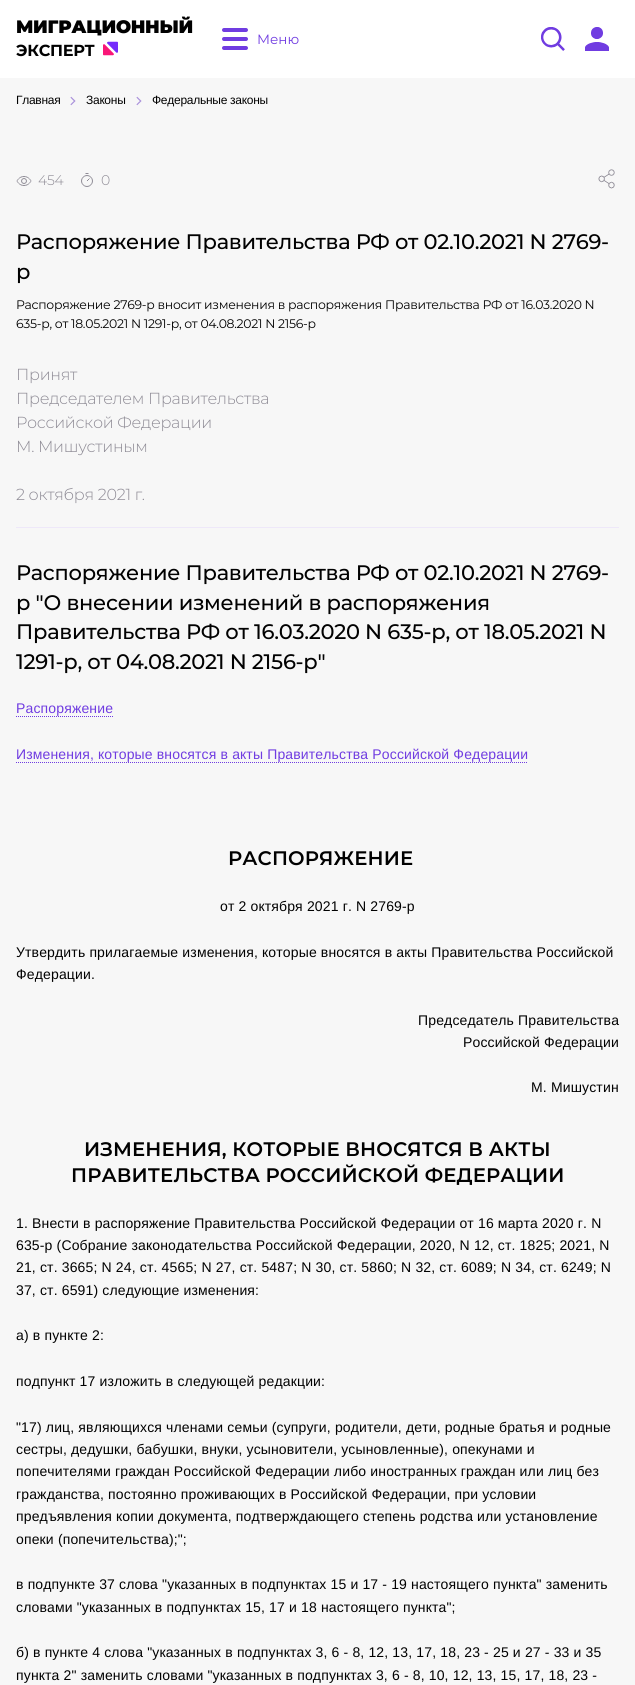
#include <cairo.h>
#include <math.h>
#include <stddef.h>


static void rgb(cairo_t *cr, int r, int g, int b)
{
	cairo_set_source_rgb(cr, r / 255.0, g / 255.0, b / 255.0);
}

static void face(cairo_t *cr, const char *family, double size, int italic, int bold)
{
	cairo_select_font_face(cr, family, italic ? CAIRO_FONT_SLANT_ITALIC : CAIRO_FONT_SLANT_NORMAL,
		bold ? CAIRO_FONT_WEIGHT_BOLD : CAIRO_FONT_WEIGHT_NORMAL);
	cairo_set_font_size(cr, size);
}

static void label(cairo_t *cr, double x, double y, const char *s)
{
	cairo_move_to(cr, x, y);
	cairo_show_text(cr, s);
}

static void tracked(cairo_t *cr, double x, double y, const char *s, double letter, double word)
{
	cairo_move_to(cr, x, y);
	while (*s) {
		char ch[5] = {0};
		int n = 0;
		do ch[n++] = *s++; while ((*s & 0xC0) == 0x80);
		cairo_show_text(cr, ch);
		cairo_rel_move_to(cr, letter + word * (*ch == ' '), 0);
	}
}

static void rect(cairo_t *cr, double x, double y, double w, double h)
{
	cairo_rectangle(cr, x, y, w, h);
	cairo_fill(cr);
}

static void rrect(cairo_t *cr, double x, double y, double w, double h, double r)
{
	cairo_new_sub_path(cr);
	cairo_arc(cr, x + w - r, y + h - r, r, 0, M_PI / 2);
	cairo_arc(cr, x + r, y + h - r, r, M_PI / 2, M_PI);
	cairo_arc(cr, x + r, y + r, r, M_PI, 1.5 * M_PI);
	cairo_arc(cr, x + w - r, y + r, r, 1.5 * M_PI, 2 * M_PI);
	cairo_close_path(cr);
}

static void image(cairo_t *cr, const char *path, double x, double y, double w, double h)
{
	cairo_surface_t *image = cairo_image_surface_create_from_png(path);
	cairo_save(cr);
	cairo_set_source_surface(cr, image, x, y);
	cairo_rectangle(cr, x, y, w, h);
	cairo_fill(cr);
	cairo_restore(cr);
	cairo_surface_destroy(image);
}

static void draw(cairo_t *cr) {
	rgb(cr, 247, 247, 247);
	cairo_paint(cr);
	rgb(cr, 255, 255, 255);
	rect(cr, 0, 0, 635, 78);
	face(cr, "Montserrat Black", 18, 0, 0);
	rgb(cr, 1, 1, 1);
	tracked(cr, 16, 33, "МИГРАЦИОННЫЙ", -0.27, 0);
	face(cr, "Montserrat", 16, 0, 1);
	tracked(cr, 16, 56, "ЭКСПЕРТ", -0.27, 0);
	image(cr, "image0.png", 103, 41, 15, 15);
	rgb(cr, 112, 60, 225);
	rrect(cr, 222, 28, 26, 4, 2);
	cairo_fill(cr);
	rrect(cr, 222, 37, 26, 4, 2);
	cairo_fill(cr);
	rrect(cr, 222, 46, 26, 4, 2);
	cairo_fill(cr);
	face(cr, "Montserrat", 13.5, 0, 0);
	label(cr, 257, 44, "Меню");
	image(cr, "image1.png", 541, 27, 24, 24);
	image(cr, "image2.png", 585, 27, 24, 24);
	face(cr, "Liberation Sans", 12, 0, 0);
	rgb(cr, 1, 1, 1);
	tracked(cr, 16, 104, "Главная", -0.27, 0);
	image(cr, "image3.png", 70, 96, 6, 10);
	tracked(cr, 86, 104, "Законы", -0.27, 0);
	image(cr, "image3.png", 136, 96, 6, 10);
	tracked(cr, 152, 104, "Федеральные законы", -0.27, 0);
	image(cr, "image4.png", 16, 176, 16, 10);
	face(cr, "Montserrat Light", 14, 0, 0);
	rgb(cr, 142, 139, 149);
	tracked(cr, 38, 185, "454", -0.27, 0);
	image(cr, "image5.png", 81, 173, 12, 14);
	tracked(cr, 101, 185, "0", -0.27, 0);
	image(cr, "image6.png", 598, 169, 17, 20);
	face(cr, "Montserrat Medium", 21, 0, 0);
	rgb(cr, 1, 1, 1);
	tracked(cr, 16, 249, "Распоряжение Правительства РФ от 02.10.2021 N 2769-", -0.27, 0);
	tracked(cr, 16, 279, "р", -0.27, 0);
	rgb(cr, 238, 232, 249);
	rect(cr, 16, 527, 603, 1);
	face(cr, "Montserrat", 12.4, 0, 0);
	rgb(cr, 1, 1, 1);
	tracked(cr, 16, 309, "Распоряжение 2769-р вносит изменения в распоряжения Правительства РФ от 16.03.2020 N", -0.27, 0);
	tracked(cr, 16, 328, "635-р, от 18.05.2021 N 1291-р, от 04.08.2021 N 2156-р", -0.27, 0);
	face(cr, "Montserrat Light", 16, 0, 0);
	rgb(cr, 142, 139, 149);
	tracked(cr, 16, 380, "Принят", -0.27, 0);
	tracked(cr, 16, 404, "Председателем Правительства", -0.27, 0);
	tracked(cr, 16, 428, "Российской Федерации", -0.27, 0);
	tracked(cr, 16, 452, "М. Мишустиным", -0.27, 0);
	tracked(cr, 16, 500, "2 октября 2021 г.", -0.27, 0);
	face(cr, "Montserrat Medium", 21, 0, 0);
	rgb(cr, 1, 1, 1);
	tracked(cr, 16, 580, "Распоряжение Правительства РФ от 02.10.2021 N 2769-", -0.27, 0);
	tracked(cr, 16, 610, "р \"О внесении изменений в распоряжения", -0.27, 0);
	tracked(cr, 16, 639, "Правительства РФ от 16.03.2020 N 635-р, от 18.05.2021 N", -0.27, 0);
	tracked(cr, 16, 669, "1291-р, от 04.08.2021 N 2156-р\"", -0.27, 0);
	face(cr, "Liberation Sans", 14, 0, 0);
	rgb(cr, 112, 60, 225);
	tracked(cr, 16, 713, "Распоряжение", 0.15, 0);
	cairo_new_path(cr);
	cairo_move_to(cr, 16, 716.5);
	cairo_line_to(cr, 113, 716.5);
	cairo_set_line_width(cr, 1);
	cairo_set_dash(cr, (double[]){1, 1}, 2, 0);
	cairo_stroke(cr);
	tracked(cr, 16, 759, "Изменения, которые вносятся в акты Правительства Российской Федерации", 0.15, 0);
	cairo_new_path(cr);
	cairo_move_to(cr, 16, 762.5);
	cairo_line_to(cr, 528, 762.5);
	cairo_stroke(cr);
	face(cr, "Montserrat SemiBold", 19.6, 0, 0);
	rgb(cr, 1, 1, 1);
	tracked(cr, 228, 865, "РАСПОРЯЖЕНИЕ", 0.15, 0);
	face(cr, "Liberation Sans", 14, 0, 0);
	tracked(cr, 220, 911, "от 2 октября 2021 г. N 2769-р", 0.15, 0);
	tracked(cr, 16, 957, "Утвердить прилагаемые изменения, которые вносятся в акты Правительства Российской", 0.15, 0);
	tracked(cr, 16, 979, "Федерации.", 0.15, 0);
	tracked(cr, 418, 1025, "Председатель Правительства", 0.15, 0);
	tracked(cr, 463, 1047, "Российской Федерации", 0.15, 0);
	tracked(cr, 531, 1092, "М. Мишустин", 0.15, 0);
	face(cr, "Montserrat SemiBold", 19.6, 0, 0);
	tracked(cr, 84, 1156, "ИЗМЕНЕНИЯ, КОТОРЫЕ ВНОСЯТСЯ В АКТЫ", 0.15, 0);
	tracked(cr, 71, 1182, "ПРАВИТЕЛЬСТВА РОССИЙСКОЙ ФЕДЕРАЦИИ", 0.15, 0);
	face(cr, "Liberation Sans", 14, 0, 0);
	tracked(cr, 16, 1228, "1. Внести в распоряжение Правительства Российской Федерации от 16 марта 2020 г. N", 0.15, 0);
	tracked(cr, 16, 1250, "635-р (Собрание законодательства Российской Федерации, 2020, N 12, ст. 1825; 2021, N", 0.15, 0);
	tracked(cr, 16, 1272, "21, ст. 3665; N 24, ст. 4565; N 27, ст. 5487; N 30, ст. 5860; N 32, ст. 6089; N 34, ст. 6249; N", 0.15, 0);
	tracked(cr, 16, 1295, "37, ст. 6591) следующие изменения:", 0.15, 0);
	tracked(cr, 16, 1340, "а) в пункте 2:", 0.15, 0);
	tracked(cr, 16, 1386, "подпункт 17 изложить в следующей редакции:", 0.15, 0);
	tracked(cr, 16, 1432, "\"17) лиц, являющихся членами семьи (супруги, родители, дети, родные братья и родные", 0.15, 0);
	tracked(cr, 16, 1454, "сестры, дедушки, бабушки, внуки, усыновители, усыновленные), опекунами и", 0.15, 0);
	tracked(cr, 16, 1476, "попечителями граждан Российской Федерации либо иностранных граждан или лиц без", 0.15, 0);
	tracked(cr, 16, 1499, "гражданства, постоянно проживающих в Российской Федерации, при условии", 0.15, 0);
	tracked(cr, 16, 1521, "предъявления копии документа, подтверждающего степень родства или установление", 0.15, 0);
	tracked(cr, 16, 1544, "опеки (попечительства);\";", 0.15, 0);
	tracked(cr, 16, 1589, "в подпункте 37 слова \"указанных в подпунктах 15 и 17 - 19 настоящего пункта\" заменить", 0.15, 0);
	tracked(cr, 16, 1612, "словами \"указанных в подпунктах 15, 17 и 18 настоящего пункта\";", 0.15, 0);
	tracked(cr, 16, 1657, "б) в пункте 4 слова \"указанных в подпунктах 3, 6 - 8, 12, 13, 17, 18, 23 - 25 и 27 - 33 и 35", 0.15, 0);
	tracked(cr, 16, 1680, "пункта 2\" заменить словами \"указанных в подпунктах 3, 6 - 8, 10, 12, 13, 15, 17, 18, 23 -", 0.15, 0);
}

int main(void) {
	cairo_surface_t *surface = cairo_image_surface_create(CAIRO_FORMAT_RGB24, 635, 1685);
	cairo_t *cr = cairo_create(surface);
	cairo_font_options_t *options = cairo_font_options_create();
	cairo_font_options_set_hint_metrics(options, CAIRO_HINT_METRICS_OFF);
	cairo_font_options_set_hint_style(options, CAIRO_HINT_STYLE_NONE);
	cairo_set_font_options(cr, options);
	cairo_set_miter_limit(cr, 4);
	draw(cr);
	cairo_surface_write_to_png(surface, "render.png");
	cairo_font_options_destroy(options);
	cairo_destroy(cr);
	cairo_surface_destroy(surface);
	return 0;
}
